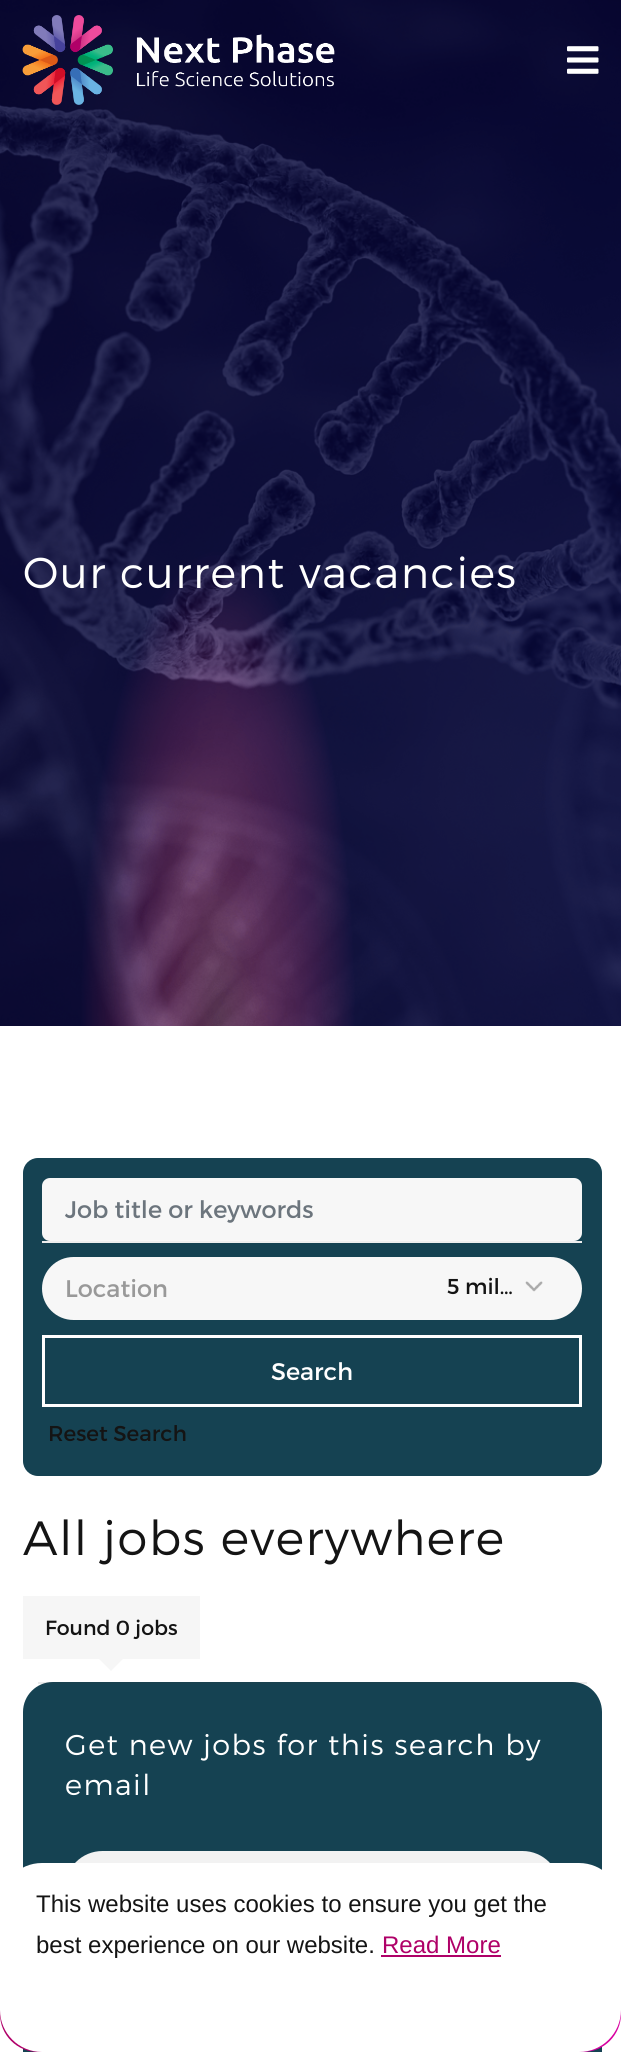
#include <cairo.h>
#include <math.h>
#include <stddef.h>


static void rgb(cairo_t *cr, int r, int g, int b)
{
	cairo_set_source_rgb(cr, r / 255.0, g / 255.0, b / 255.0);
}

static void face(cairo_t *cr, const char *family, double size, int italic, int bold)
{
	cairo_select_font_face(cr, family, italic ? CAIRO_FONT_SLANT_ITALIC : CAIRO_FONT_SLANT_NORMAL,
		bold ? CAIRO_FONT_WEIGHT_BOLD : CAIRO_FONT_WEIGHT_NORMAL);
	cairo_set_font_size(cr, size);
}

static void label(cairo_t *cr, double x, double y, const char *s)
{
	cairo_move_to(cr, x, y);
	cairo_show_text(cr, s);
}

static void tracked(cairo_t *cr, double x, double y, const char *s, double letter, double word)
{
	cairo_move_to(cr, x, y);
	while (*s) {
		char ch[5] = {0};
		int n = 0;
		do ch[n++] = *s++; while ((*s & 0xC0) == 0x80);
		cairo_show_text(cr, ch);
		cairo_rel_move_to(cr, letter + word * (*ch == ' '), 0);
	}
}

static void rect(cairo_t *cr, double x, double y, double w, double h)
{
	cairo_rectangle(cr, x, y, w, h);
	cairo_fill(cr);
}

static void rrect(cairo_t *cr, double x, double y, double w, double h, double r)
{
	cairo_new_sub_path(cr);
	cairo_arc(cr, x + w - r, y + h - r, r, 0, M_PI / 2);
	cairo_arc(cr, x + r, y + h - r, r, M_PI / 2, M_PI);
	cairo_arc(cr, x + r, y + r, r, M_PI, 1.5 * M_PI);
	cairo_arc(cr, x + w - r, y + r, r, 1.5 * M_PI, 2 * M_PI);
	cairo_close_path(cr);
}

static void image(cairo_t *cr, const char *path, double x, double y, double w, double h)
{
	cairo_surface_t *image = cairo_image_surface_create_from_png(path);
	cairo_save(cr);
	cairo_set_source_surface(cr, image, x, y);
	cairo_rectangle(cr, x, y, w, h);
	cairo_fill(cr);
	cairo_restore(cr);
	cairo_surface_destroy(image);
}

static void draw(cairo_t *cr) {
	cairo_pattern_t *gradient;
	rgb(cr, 255, 255, 255);
	cairo_paint(cr);
	image(cr, "image2.png", 0, 0, 621, 1026);
	image(cr, "image0.png", 22, 15, 313, 90);
	image(cr, "image1.png", 567, 46, 32, 28);
	face(cr, "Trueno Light", 43.25, 0, 0);
	rgb(cr, 255, 255, 255);
	tracked(cr, 23, 588, "Our current vacancies", 1.5, 0);
	rgb(cr, 21, 66, 82);
	rrect(cr, 23, 1158, 579, 318, 15);
	cairo_fill(cr);
	rgb(cr, 238, 238, 238);
	rect(cr, 42, 1241, 540, 2);
	rgb(cr, 247, 247, 247);
	rrect(cr, 42, 1178, 540, 63, 8);
	cairo_fill(cr);
	face(cr, "Trueno", 24, 0, 0);
	rgb(cr, 108, 117, 125);
	label(cr, 65, 1218, "Job title or keywords");
	rgb(cr, 247, 247, 247);
	rrect(cr, 42, 1257, 540, 63, 31.5);
	cairo_fill(cr);
	rgb(cr, 153, 153, 153);
	label(cr, 65, 1297, "Location");
	image(cr, "image3.png", 525, 1281, 18, 11);
	face(cr, "Trueno", 21.5, 0, 0);
	rgb(cr, 20, 20, 20);
	label(cr, 447, 1294, "5 mil…");
	cairo_rectangle(cr, 43.5, 1336.5, 537, 69);
	rgb(cr, 255, 255, 255);
	cairo_set_line_width(cr, 3);
	cairo_stroke(cr);
	face(cr, "Trueno", 24, 0, 0);
	label(cr, 271, 1380, "Search");
	face(cr, "Trueno", 21.5, 0, 0);
	rgb(cr, 20, 20, 20);
	label(cr, 48, 1441, "Reset Search");
	face(cr, "Trueno Light", 48, 0, 0);
	tracked(cr, 23, 1555, "All jobs everywhere", 1.5, 0);
	rgb(cr, 246, 246, 246);
	rect(cr, 23, 1596, 177, 63);
	face(cr, "Trueno", 20.5, 0, 0);
	rgb(cr, 20, 20, 20);
	label(cr, 45, 1635, "Found 0 jobs");
	rgb(cr, 246, 246, 246);
	cairo_new_path(cr);
	cairo_move_to(cr, 99, 1659);
	cairo_line_to(cr, 123, 1659);
	cairo_line_to(cr, 111, 1671);
	cairo_close_path(cr);
	cairo_fill(cr);
	rgb(cr, 21, 66, 82);
	rrect(cr, 23, 1682, 579, 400, 30);
	cairo_fill(cr);
	cairo_set_source_rgba(cr, 0.2, 0.2, 0.2, 0.1);
	rect(cr, 38, 1682, 549, 2);
	face(cr, "Trueno Light", 28.75, 0, 0);
	rgb(cr, 255, 255, 255);
	tracked(cr, 65, 1755, "Get new jobs for this search by", 1.5, 0);
	tracked(cr, 65, 1795, "email", 1.5, 0);
	rgb(cr, 242, 242, 242);
	rrect(cr, 65, 1851, 495, 75, 37.5);
	cairo_fill(cr);
	gradient = cairo_pattern_create_linear(621, 2012, 0, 2012);
	cairo_pattern_add_color_stop_rgba(gradient, 0, 0.847, 0, 0.631, 1);
	cairo_pattern_add_color_stop_rgba(gradient, 1, 0.686, 0, 0.408, 1);
	cairo_set_source(cr, gradient);
	cairo_pattern_destroy(gradient);
	rrect(cr, 0, 1971, 621, 81, 38);
	cairo_fill(cr);
	rgb(cr, 255, 255, 255);
	rrect(cr, 0, 1863, 621, 189, 42);
	cairo_fill(cr);
	face(cr, "Liberation Sans", 24, 0, 0);
	rgb(cr, 20, 20, 20);
	label(cr, 36, 1912, "This website uses cookies to ensure you get the");
	label(cr, 36, 1953, "best experience on our website.");
	rgb(cr, 175, 0, 104);
	label(cr, 382, 1953, "Read More");
	rect(cr, 381, 1955, 120, 2);
}

int main(void) {
	cairo_surface_t *surface = cairo_image_surface_create(CAIRO_FORMAT_RGB24, 621, 2052);
	cairo_t *cr = cairo_create(surface);
	cairo_font_options_t *options = cairo_font_options_create();
	cairo_font_options_set_hint_metrics(options, CAIRO_HINT_METRICS_OFF);
	cairo_font_options_set_hint_style(options, CAIRO_HINT_STYLE_NONE);
	cairo_set_font_options(cr, options);
	cairo_set_miter_limit(cr, 4);
	draw(cr);
	cairo_surface_write_to_png(surface, "render.png");
	cairo_font_options_destroy(options);
	cairo_destroy(cr);
	cairo_surface_destroy(surface);
	return 0;
}
